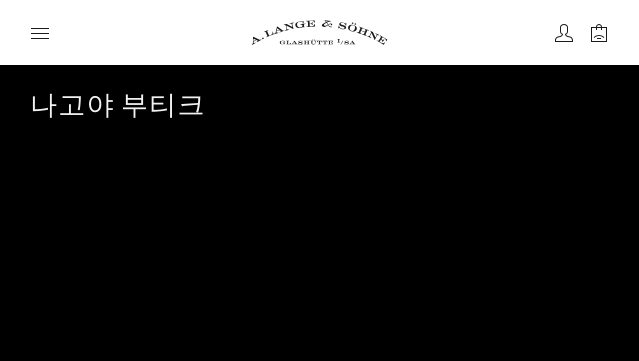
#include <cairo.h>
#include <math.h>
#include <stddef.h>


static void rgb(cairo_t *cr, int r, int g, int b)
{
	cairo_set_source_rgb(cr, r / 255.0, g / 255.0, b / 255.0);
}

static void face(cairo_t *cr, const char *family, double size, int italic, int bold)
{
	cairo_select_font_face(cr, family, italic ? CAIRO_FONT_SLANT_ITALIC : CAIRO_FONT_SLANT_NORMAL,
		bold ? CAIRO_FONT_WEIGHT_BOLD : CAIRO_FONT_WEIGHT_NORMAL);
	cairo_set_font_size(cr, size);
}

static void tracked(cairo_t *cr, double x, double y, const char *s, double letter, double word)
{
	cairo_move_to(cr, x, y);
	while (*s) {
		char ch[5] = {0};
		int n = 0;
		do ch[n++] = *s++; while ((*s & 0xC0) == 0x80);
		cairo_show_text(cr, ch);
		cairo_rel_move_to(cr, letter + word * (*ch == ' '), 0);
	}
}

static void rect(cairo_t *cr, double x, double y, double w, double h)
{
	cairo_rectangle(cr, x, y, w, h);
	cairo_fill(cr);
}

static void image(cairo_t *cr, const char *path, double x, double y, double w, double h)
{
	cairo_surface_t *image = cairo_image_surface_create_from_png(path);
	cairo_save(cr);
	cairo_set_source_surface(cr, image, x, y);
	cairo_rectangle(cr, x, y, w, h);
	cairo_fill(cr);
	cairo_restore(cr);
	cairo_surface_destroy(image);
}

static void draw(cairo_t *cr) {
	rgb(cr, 255, 255, 255);
	cairo_paint(cr);
	image(cr, "image0.png", 31, 28, 18, 11);
	image(cr, "image1.png", 251, 20, 137, 25);
	image(cr, "image2.png", 555, 24, 18, 18);
	image(cr, "image3.png", 591, 24, 16, 18);
	rgb(cr, 0, 0, 0);
	rect(cr, 0, 65, 639, 296);
	face(cr, "WenQuanYi Zen Hei Medium", 27, 0, 0);
	rgb(cr, 242, 242, 242);
	tracked(cr, 30, 114, "나고야 부티크", 1.25, -3);
}

int main(void) {
	cairo_surface_t *surface = cairo_image_surface_create(CAIRO_FORMAT_RGB24, 639, 361);
	cairo_t *cr = cairo_create(surface);
	cairo_font_options_t *options = cairo_font_options_create();
	cairo_font_options_set_hint_metrics(options, CAIRO_HINT_METRICS_OFF);
	cairo_font_options_set_hint_style(options, CAIRO_HINT_STYLE_NONE);
	cairo_set_font_options(cr, options);
	cairo_set_miter_limit(cr, 4);
	draw(cr);
	cairo_surface_write_to_png(surface, "render.png");
	cairo_font_options_destroy(options);
	cairo_destroy(cr);
	cairo_surface_destroy(surface);
	return 0;
}
